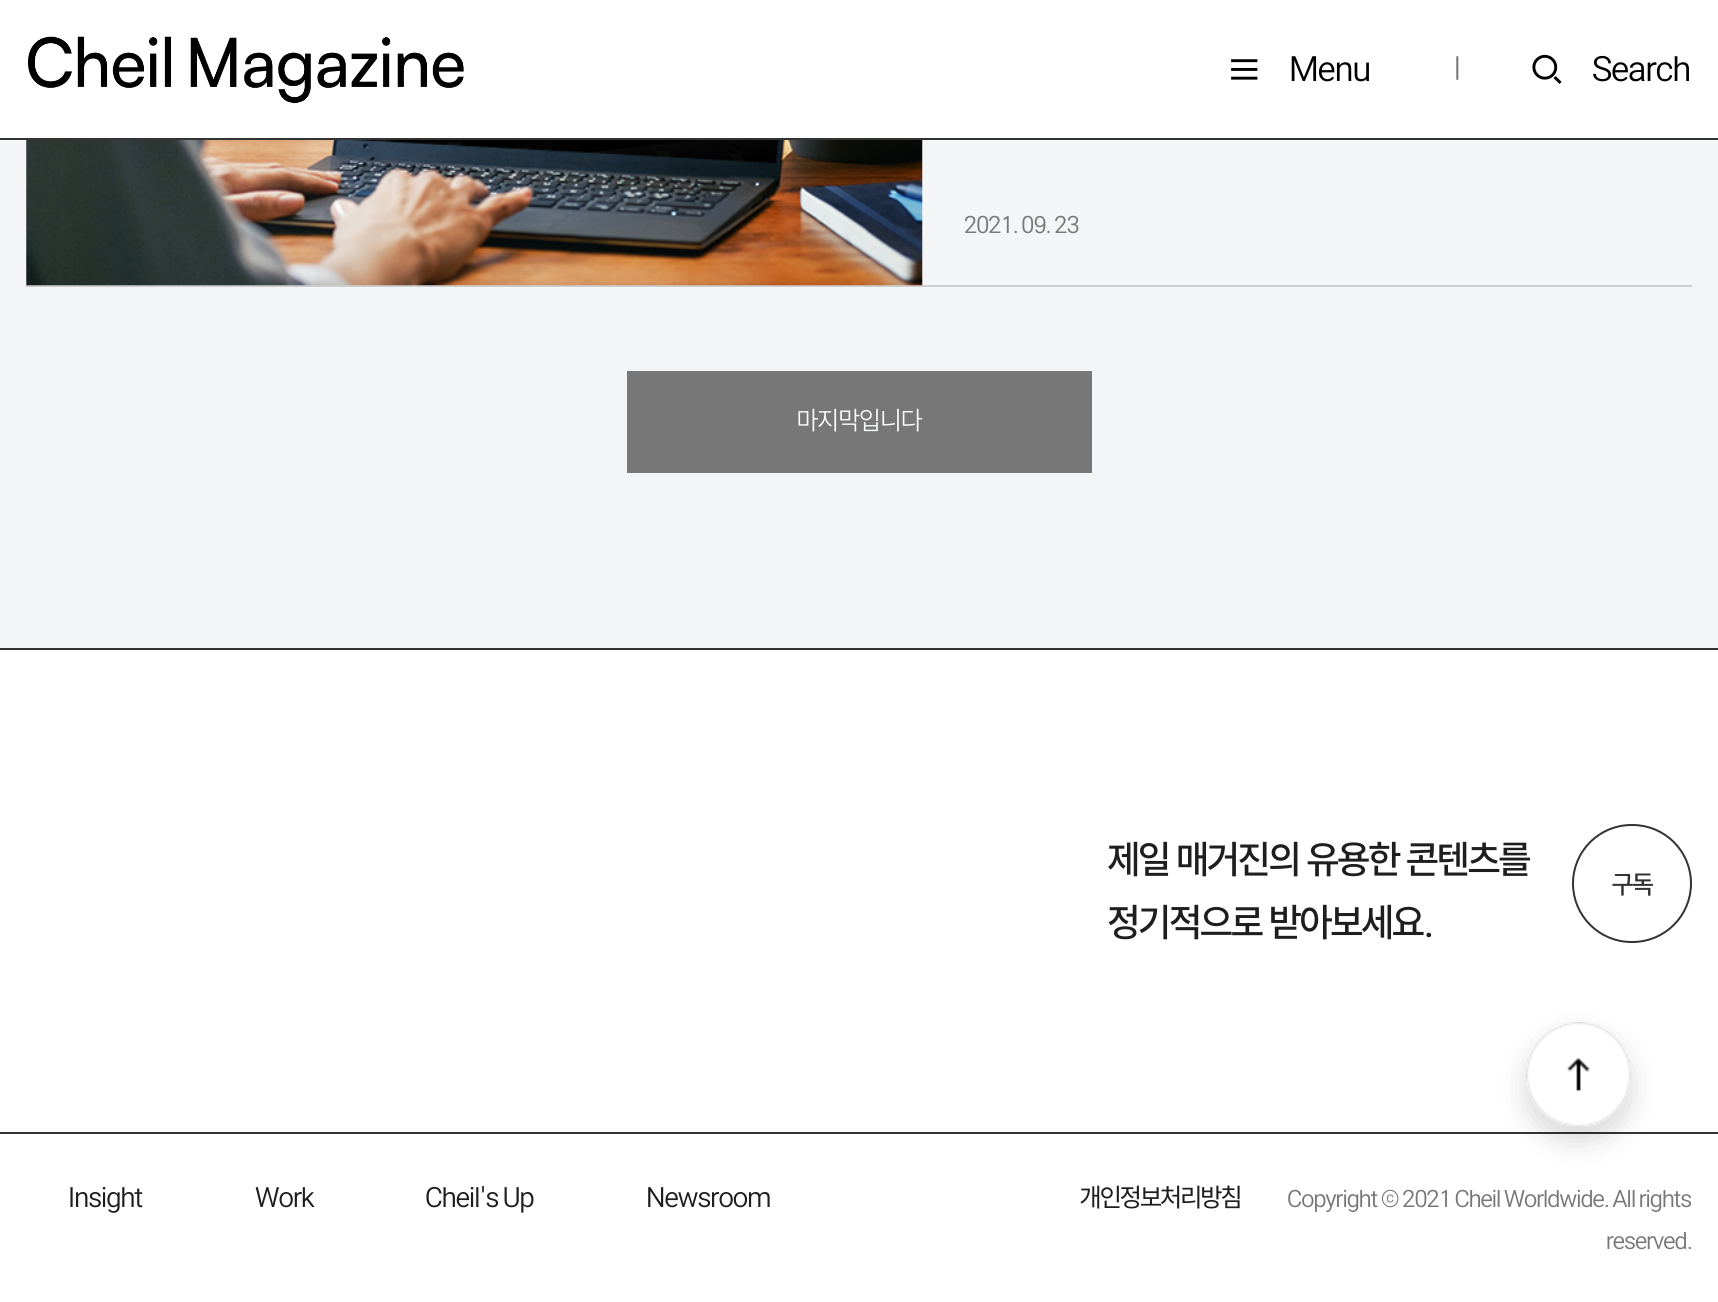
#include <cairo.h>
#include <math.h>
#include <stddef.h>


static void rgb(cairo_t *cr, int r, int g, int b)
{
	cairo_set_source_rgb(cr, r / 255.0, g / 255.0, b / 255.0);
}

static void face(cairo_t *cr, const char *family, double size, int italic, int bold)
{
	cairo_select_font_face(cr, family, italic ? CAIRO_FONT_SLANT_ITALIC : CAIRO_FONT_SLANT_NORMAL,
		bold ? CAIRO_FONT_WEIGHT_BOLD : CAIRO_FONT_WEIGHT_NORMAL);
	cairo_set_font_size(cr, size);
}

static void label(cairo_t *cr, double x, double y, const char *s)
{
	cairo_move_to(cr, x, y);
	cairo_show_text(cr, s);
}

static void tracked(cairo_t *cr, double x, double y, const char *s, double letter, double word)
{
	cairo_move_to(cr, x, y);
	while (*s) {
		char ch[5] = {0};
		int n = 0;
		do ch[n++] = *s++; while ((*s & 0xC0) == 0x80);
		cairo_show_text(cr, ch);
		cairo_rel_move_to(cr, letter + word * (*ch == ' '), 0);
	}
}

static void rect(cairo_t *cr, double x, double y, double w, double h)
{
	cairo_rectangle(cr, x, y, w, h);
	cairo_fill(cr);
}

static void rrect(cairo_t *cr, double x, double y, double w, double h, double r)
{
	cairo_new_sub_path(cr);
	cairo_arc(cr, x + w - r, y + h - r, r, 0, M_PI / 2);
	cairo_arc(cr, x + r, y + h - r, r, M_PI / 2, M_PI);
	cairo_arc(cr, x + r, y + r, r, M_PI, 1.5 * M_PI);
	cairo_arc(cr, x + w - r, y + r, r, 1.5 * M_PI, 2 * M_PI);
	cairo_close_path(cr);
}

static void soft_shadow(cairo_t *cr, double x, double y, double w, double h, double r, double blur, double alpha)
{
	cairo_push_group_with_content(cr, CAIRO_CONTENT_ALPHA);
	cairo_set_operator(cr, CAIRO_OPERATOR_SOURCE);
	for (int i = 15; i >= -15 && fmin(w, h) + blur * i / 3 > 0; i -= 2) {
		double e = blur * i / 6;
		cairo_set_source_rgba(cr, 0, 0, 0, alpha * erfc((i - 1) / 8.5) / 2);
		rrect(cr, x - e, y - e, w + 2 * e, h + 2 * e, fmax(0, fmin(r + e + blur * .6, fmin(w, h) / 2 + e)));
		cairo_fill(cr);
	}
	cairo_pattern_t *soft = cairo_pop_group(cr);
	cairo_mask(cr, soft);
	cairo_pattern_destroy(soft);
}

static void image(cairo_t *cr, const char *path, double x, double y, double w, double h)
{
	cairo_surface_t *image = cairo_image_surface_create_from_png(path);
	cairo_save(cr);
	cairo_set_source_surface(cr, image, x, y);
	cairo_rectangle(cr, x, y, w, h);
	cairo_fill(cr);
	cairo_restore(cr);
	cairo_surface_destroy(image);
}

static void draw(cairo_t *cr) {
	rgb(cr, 255, 255, 255);
	cairo_paint(cr);
	rgb(cr, 51, 51, 51);
	rect(cr, 0, 138, 1718, 2);
	image(cr, "image0.png", 28, 36, 436, 68);
	image(cr, "image1.png", 1231, 59, 27, 21);
	face(cr, "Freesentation", 35, 0, 0);
	rgb(cr, 0, 0, 0);
	tracked(cr, 1289, 81, "Menu", -0.9, 0);
	face(cr, "Freesentation", 28, 0, 0);
	rgb(cr, 119, 119, 119);
	tracked(cr, 1454, 78, "|", -0.9, 0);
	image(cr, "image2.png", 1532, 54, 30, 30);
	face(cr, "Freesentation", 35, 0, 0);
	rgb(cr, 0, 0, 0);
	tracked(cr, 1592, 81, "Search", -0.9, 0);
	rgb(cr, 244, 245, 247);
	rect(cr, 0, 140, 1718, 508);
	rgb(cr, 205, 206, 207);
	rect(cr, 26, 285, 1666, 2);
	image(cr, "image3.png", 26, 140, 897, 146);
	face(cr, "Freesentation", 24, 0, 0);
	rgb(cr, 119, 119, 119);
	tracked(cr, 964, 233, "2021. 09. 23", -0.9, 0);
	rgb(cr, 119, 119, 120);
	rect(cr, 627, 371, 465, 102);
	face(cr, "Freesentation Light", 28, 0, 0);
	rgb(cr, 251, 252, 252);
	label(cr, 797, 430, "마지막입니다");
	rgb(cr, 51, 51, 51);
	rect(cr, 0, 648, 1718, 2);
	face(cr, "Freesentation Medium", 42, 0, 0);
	rgb(cr, 30, 30, 30);
	tracked(cr, 1108, 874, "제일 매거진의 유용한 콘텐츠를", -0.9, 0);
	tracked(cr, 1108, 937, "정기적으로 받아보세요.", -0.9, 0);
	rrect(cr, 1573, 825, 118, 117, 58.5);
	rgb(cr, 51, 51, 51);
	cairo_stroke(cr);
	face(cr, "Freesentation Medium", 28, 0, 0);
	tracked(cr, 1612, 894, "구독", -0.9, 0);
	rect(cr, 0, 1132, 1718, 2);
	face(cr, "Freesentation", 28, 0, 0);
	rgb(cr, 30, 30, 30);
	tracked(cr, 68, 1207, "Insight", -0.9, 0);
	tracked(cr, 255, 1207, "Work", -0.9, 0);
	tracked(cr, 425, 1207, "Cheil's Up", -0.9, 0);
	tracked(cr, 646, 1207, "Newsroom", -0.9, 0);
	tracked(cr, 1080, 1207, "개인정보처리방침", -0.9, 0);
	face(cr, "Freesentation", 24, 0, 0);
	rgb(cr, 119, 119, 119);
	tracked(cr, 1287, 1207, "Copyright © 2021 Cheil Worldwide. All rights", -0.9, 0);
	tracked(cr, 1606, 1249, "reserved.", -0.9, 0);
	cairo_save(cr);
	cairo_set_fill_rule(cr, CAIRO_FILL_RULE_EVEN_ODD);
	cairo_new_path(cr);
	cairo_move_to(cr, 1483, 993);
	cairo_line_to(cr, 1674, 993);
	cairo_line_to(cr, 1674, 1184);
	cairo_line_to(cr, 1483, 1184);
	cairo_close_path(cr);
	cairo_move_to(cr, 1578.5, 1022);
	cairo_curve_to(cr, 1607.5, 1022, 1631, 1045.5, 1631, 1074.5);
	cairo_curve_to(cr, 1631, 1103.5, 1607.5, 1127, 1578.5, 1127);
	cairo_curve_to(cr, 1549.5, 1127, 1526, 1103.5, 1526, 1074.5);
	cairo_curve_to(cr, 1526, 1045.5, 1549.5, 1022, 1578.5, 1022);
	cairo_close_path(cr);
	cairo_clip(cr);
	rgb(cr, 0, 0, 0);
	soft_shadow(cr, 1526, 1036, 105, 105, 52.5, 14, 0.15);
	cairo_restore(cr);
	image(cr, "image4.png", 1526, 1022, 105, 105);
}

int main(void) {
	cairo_surface_t *surface = cairo_image_surface_create(CAIRO_FORMAT_RGB24, 1718, 1302);
	cairo_t *cr = cairo_create(surface);
	cairo_font_options_t *options = cairo_font_options_create();
	cairo_font_options_set_hint_metrics(options, CAIRO_HINT_METRICS_OFF);
	cairo_font_options_set_hint_style(options, CAIRO_HINT_STYLE_NONE);
	cairo_set_font_options(cr, options);
	cairo_set_miter_limit(cr, 4);
	draw(cr);
	cairo_surface_write_to_png(surface, "render.png");
	cairo_font_options_destroy(options);
	cairo_destroy(cr);
	cairo_surface_destroy(surface);
	return 0;
}
